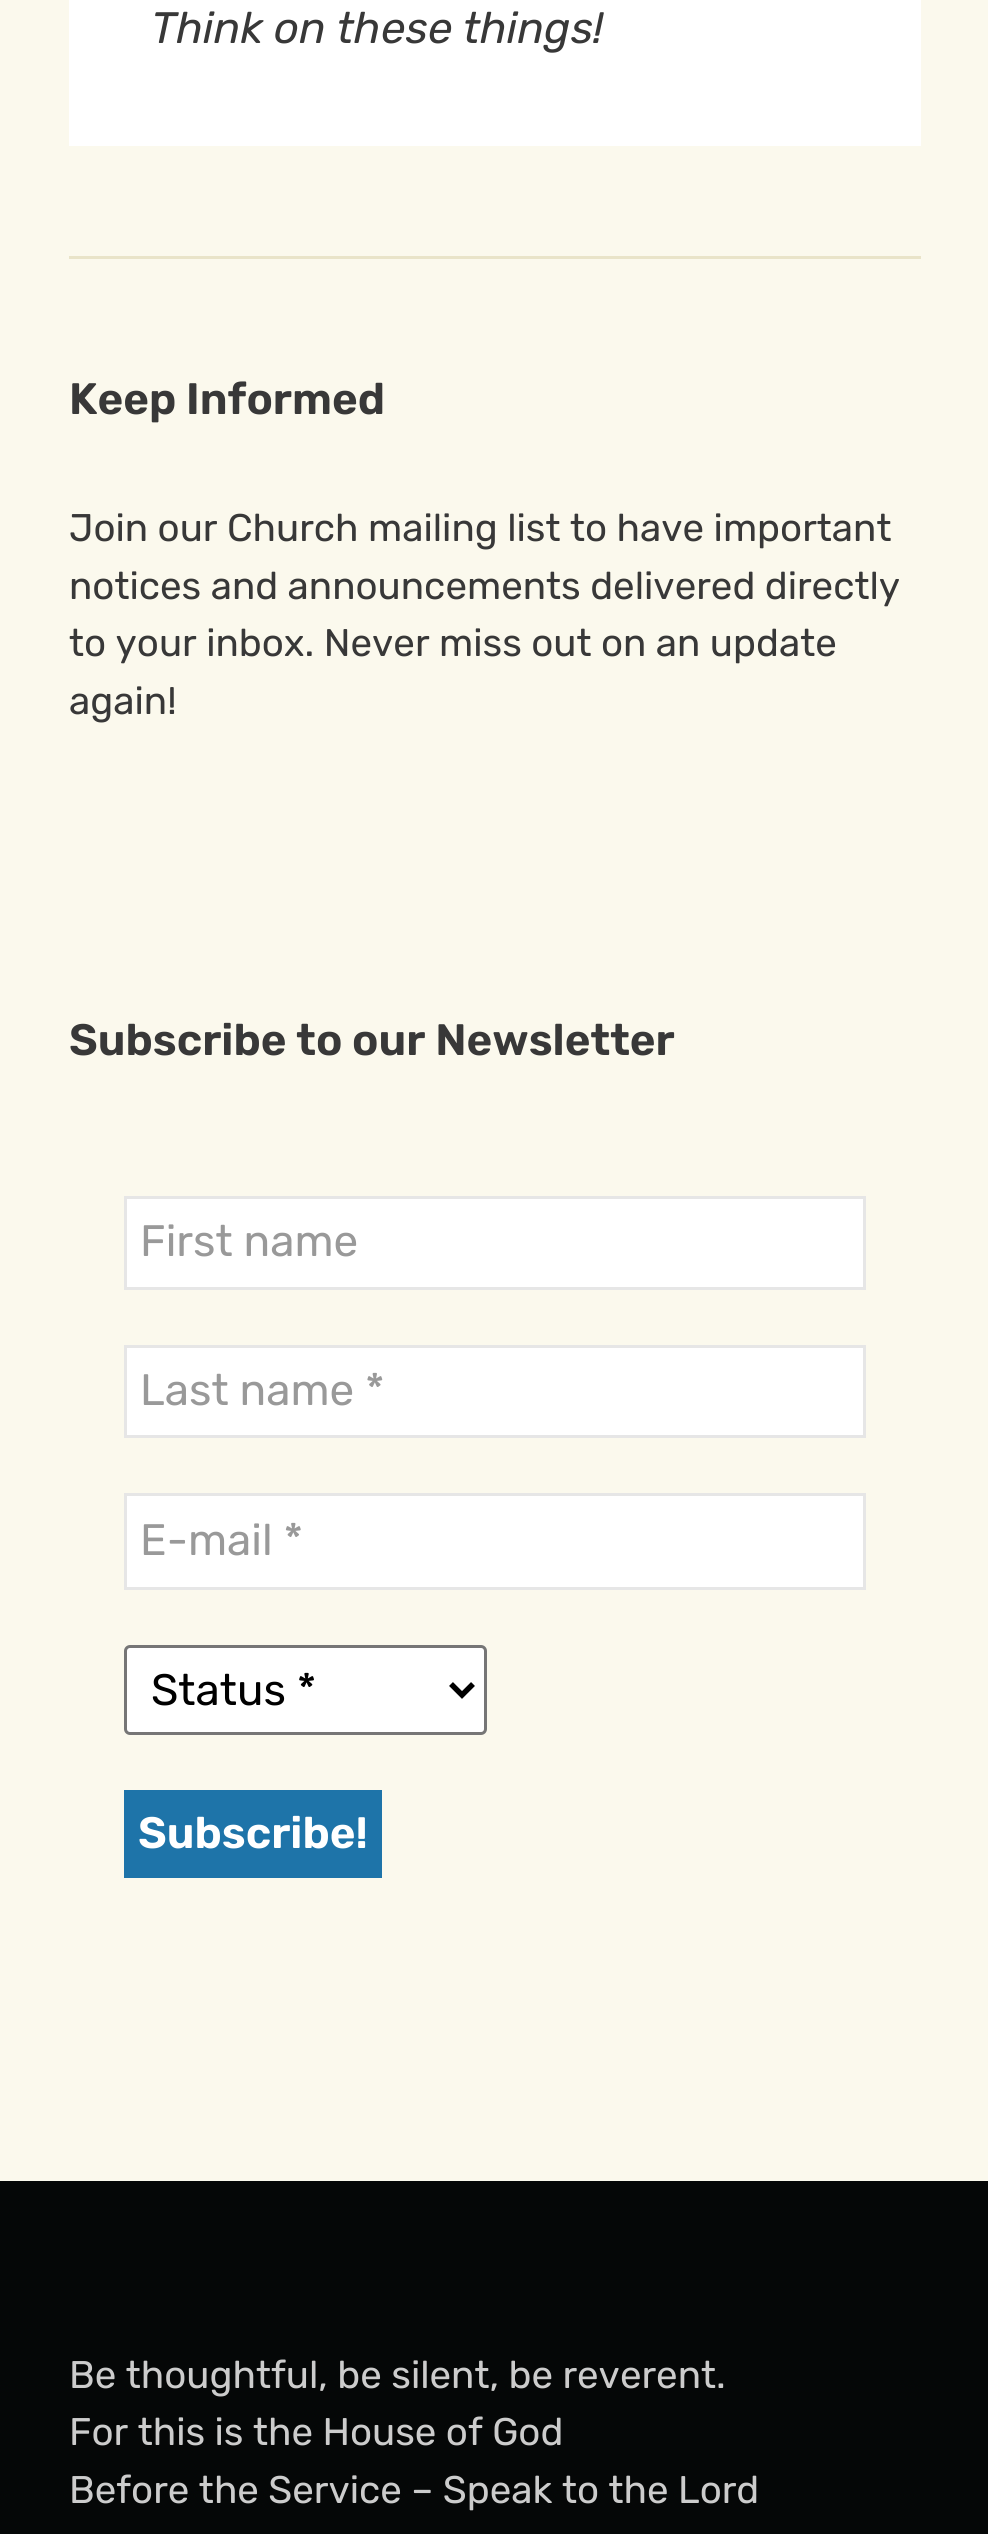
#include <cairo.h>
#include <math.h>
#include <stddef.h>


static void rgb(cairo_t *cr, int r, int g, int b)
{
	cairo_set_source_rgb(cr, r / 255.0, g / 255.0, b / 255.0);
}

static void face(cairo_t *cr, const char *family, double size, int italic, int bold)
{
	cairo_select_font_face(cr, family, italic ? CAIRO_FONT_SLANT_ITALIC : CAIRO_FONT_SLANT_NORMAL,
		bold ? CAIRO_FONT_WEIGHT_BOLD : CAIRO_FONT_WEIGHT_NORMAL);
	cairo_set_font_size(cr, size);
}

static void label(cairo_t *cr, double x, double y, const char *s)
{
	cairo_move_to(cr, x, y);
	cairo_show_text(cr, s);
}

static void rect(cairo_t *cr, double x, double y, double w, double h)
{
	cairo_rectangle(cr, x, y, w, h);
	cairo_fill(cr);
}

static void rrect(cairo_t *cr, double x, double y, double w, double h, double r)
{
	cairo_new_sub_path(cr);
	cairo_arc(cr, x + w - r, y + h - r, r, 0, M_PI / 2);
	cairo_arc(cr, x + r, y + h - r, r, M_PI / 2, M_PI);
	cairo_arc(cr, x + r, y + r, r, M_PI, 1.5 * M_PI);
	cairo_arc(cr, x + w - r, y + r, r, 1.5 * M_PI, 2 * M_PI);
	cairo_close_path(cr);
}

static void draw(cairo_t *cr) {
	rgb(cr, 251, 249, 237);
	cairo_paint(cr);
	rgb(cr, 255, 255, 255);
	rect(cr, 69, 0, 852, 146);
	face(cr, "Rubik", 44, 1, 0);
	rgb(cr, 56, 56, 56);
	label(cr, 151, 43, "Think on these things!");
	rgb(cr, 233, 228, 201);
	rect(cr, 69, 256, 852, 3);
	face(cr, "Rubik SemiBold", 44, 0, 0);
	rgb(cr, 56, 56, 56);
	label(cr, 69, 414, "Keep Informed");
	face(cr, "Rubik", 38.5, 0, 0);
	label(cr, 69, 541, "Join our Church mailing list to have important");
	label(cr, 69, 599, "notices and announcements delivered directly");
	label(cr, 69, 656, "to your inbox. Never miss out on an update");
	label(cr, 69, 714, "again!");
	face(cr, "Rubik SemiBold", 44, 0, 0);
	label(cr, 69, 1055, "Subscribe to our Newsletter");
	rgb(cr, 255, 255, 255);
	cairo_rectangle(cr, 125.5, 1197.5, 739, 91);
	cairo_fill_preserve(cr);
	rgb(cr, 230, 230, 230);
	cairo_set_line_width(cr, 3);
	cairo_stroke(cr);
	face(cr, "Rubik", 44, 0, 0);
	rgb(cr, 153, 153, 153);
	label(cr, 140, 1256, "First name");
	rgb(cr, 255, 255, 255);
	cairo_rectangle(cr, 125.5, 1346.5, 739, 90);
	cairo_fill_preserve(cr);
	rgb(cr, 230, 230, 230);
	cairo_stroke(cr);
	rgb(cr, 153, 153, 153);
	label(cr, 140, 1405, "Last name *");
	rgb(cr, 255, 255, 255);
	cairo_rectangle(cr, 125.5, 1494.5, 739, 94);
	cairo_fill_preserve(cr);
	rgb(cr, 230, 230, 230);
	cairo_stroke(cr);
	rgb(cr, 153, 153, 153);
	label(cr, 140, 1555, "E-mail *");
	rgb(cr, 255, 255, 255);
	rrect(cr, 125.5, 1646.5, 360, 87, 4.5);
	cairo_fill_preserve(cr);
	rgb(cr, 118, 118, 118);
	cairo_stroke(cr);
	cairo_new_path(cr);
	cairo_move_to(cr, 451, 1684);
	cairo_line_to(cr, 462, 1695);
	cairo_line_to(cr, 473, 1684);
	rgb(cr, 0, 0, 0);
	cairo_set_line_width(cr, 5.5);
	cairo_stroke(cr);
	label(cr, 151, 1705, "Status *");
	rgb(cr, 30, 116, 169);
	rect(cr, 124, 1790, 258, 88);
	face(cr, "Rubik SemiBold", 44, 0, 0);
	rgb(cr, 255, 255, 255);
	label(cr, 138, 1848, "Subscribe!");
	rgb(cr, 5, 7, 7);
	rect(cr, 0, 2181, 988, 353);
	face(cr, "Rubik", 38.5, 0, 0);
	rgb(cr, 204, 204, 204);
	label(cr, 69, 2388, "Be thoughtful, be silent, be reverent.");
	label(cr, 69, 2445, "For this is the House of God");
	label(cr, 69, 2503, "Before the Service – Speak to the Lord");
}

int main(void) {
	cairo_surface_t *surface = cairo_image_surface_create(CAIRO_FORMAT_RGB24, 988, 2534);
	cairo_t *cr = cairo_create(surface);
	cairo_font_options_t *options = cairo_font_options_create();
	cairo_font_options_set_hint_metrics(options, CAIRO_HINT_METRICS_OFF);
	cairo_font_options_set_hint_style(options, CAIRO_HINT_STYLE_NONE);
	cairo_set_font_options(cr, options);
	cairo_set_miter_limit(cr, 4);
	draw(cr);
	cairo_surface_write_to_png(surface, "render.png");
	cairo_font_options_destroy(options);
	cairo_destroy(cr);
	cairo_surface_destroy(surface);
	return 0;
}
